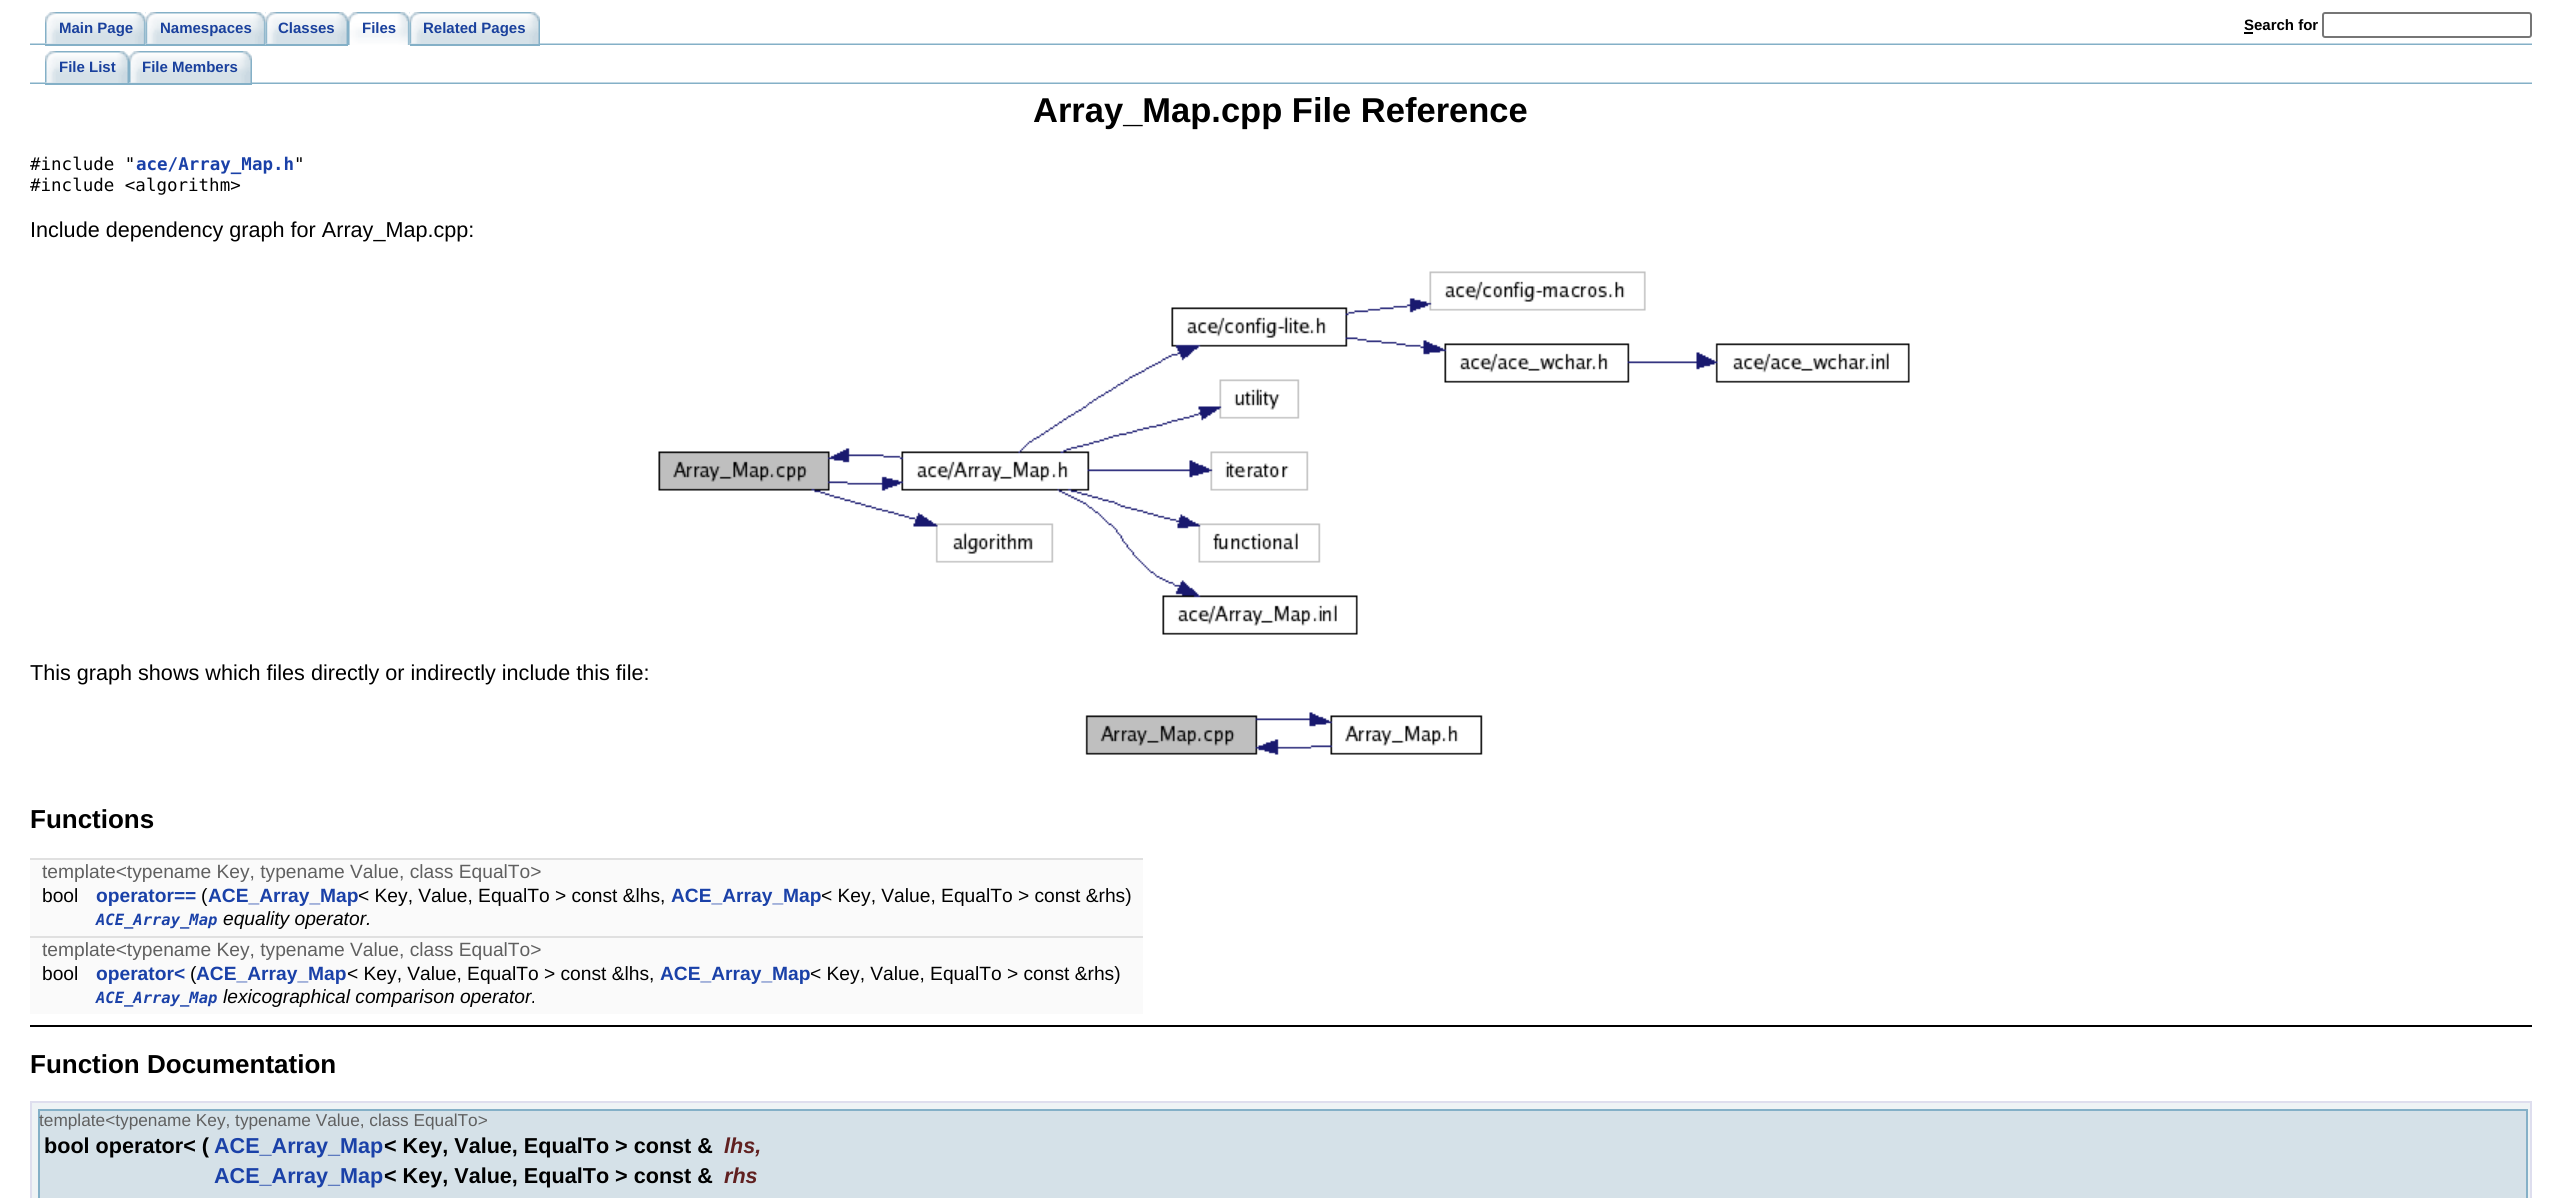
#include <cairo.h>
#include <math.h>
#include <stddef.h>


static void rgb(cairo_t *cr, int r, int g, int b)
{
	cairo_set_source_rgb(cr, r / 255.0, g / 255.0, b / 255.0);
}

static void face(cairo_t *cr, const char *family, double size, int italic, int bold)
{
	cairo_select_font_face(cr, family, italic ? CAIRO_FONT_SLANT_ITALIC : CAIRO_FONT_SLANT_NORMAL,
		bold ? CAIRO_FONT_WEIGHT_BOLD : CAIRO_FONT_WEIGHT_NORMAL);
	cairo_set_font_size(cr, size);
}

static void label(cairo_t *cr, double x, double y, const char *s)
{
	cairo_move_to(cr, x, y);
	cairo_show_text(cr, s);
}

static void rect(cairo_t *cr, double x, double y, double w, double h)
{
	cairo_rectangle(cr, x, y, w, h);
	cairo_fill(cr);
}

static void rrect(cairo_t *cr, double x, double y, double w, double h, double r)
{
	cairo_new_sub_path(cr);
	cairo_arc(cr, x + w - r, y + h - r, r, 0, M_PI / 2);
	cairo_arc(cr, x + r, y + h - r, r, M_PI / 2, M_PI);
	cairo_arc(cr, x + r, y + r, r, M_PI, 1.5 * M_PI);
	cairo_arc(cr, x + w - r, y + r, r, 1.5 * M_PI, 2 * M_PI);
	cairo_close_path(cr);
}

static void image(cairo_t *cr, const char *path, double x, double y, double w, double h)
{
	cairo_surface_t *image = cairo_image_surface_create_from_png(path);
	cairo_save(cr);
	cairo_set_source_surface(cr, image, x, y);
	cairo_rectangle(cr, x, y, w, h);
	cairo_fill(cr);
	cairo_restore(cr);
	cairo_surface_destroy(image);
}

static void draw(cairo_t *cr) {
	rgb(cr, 255, 255, 255);
	cairo_paint(cr);
	image(cr, "image0.png", 30, 43, 2502, 2);
	image(cr, "image1.png", 45, 12, 101, 32);
	rgb(cr, 132, 176, 199);
	rect(cr, 45, 45, 101, 1);
	image(cr, "image2.png", 45, 12, 11, 32);
	face(cr, "Liberation Sans", 15, 0, 1);
	rgb(cr, 26, 65, 157);
	label(cr, 59, 33, "Main Page");
	image(cr, "image3.png", 145, 12, 121, 33);
	rgb(cr, 132, 176, 199);
	rect(cr, 146, 44, 120, 2);
	image(cr, "image4.png", 145, 12, 12, 32);
	rgb(cr, 26, 65, 157);
	label(cr, 160, 33, "Namespaces");
	image(cr, "image5.png", 265, 12, 83, 33);
	rgb(cr, 132, 176, 199);
	rect(cr, 266, 44, 82, 2);
	image(cr, "image4.png", 265, 12, 12, 32);
	rgb(cr, 26, 65, 157);
	label(cr, 278, 33, "Classes");
	image(cr, "image6.png", 358, 12, 52, 33);
	image(cr, "image7.png", 348, 12, 10, 33);
	label(cr, 362, 33, "Files");
	image(cr, "image8.png", 409, 12, 131, 33);
	rgb(cr, 132, 176, 199);
	rect(cr, 410, 44, 130, 2);
	image(cr, "image9.png", 409, 12, 12, 32);
	rgb(cr, 26, 65, 157);
	label(cr, 423, 33, "Related Pages");
	rgb(cr, 0, 0, 0);
	label(cr, 2244, 30, "Search for");
	rect(cr, 2244, 32, 9, 2);
	rrect(cr, 2323, 13, 208, 24, 2);
	rgb(cr, 118, 118, 118);
	cairo_stroke(cr);
	image(cr, "image0.png", 30, 82, 2502, 2);
	image(cr, "image10.png", 45, 51, 84, 32);
	rgb(cr, 132, 176, 199);
	rect(cr, 45, 84, 207, 1);
	image(cr, "image2.png", 45, 51, 11, 32);
	rgb(cr, 26, 65, 157);
	label(cr, 59, 72, "File List");
	image(cr, "image11.png", 129, 51, 123, 32);
	image(cr, "image2.png", 129, 51, 11, 32);
	label(cr, 142, 72, "File Members");
	face(cr, "Liberation Sans", 34.5, 0, 1);
	rgb(cr, 0, 0, 0);
	label(cr, 1033, 122, "Array_Map.cpp File Reference");
	face(cr, "DejaVu Sans Mono", 17.5, 0, 0);
	label(cr, 30, 170, "#include \"");
	face(cr, "DejaVu Sans Mono", 17.5, 0, 1);
	rgb(cr, 26, 65, 168);
	label(cr, 136, 170, "ace/Array_Map.h");
	face(cr, "DejaVu Sans Mono", 17.5, 0, 0);
	rgb(cr, 0, 0, 0);
	label(cr, 294, 170, "\"");
	label(cr, 30, 191, "#include <algorithm>");
	face(cr, "Liberation Sans", 21.6, 0, 0);
	label(cr, 30, 237, "Include dependency graph for Array_Map.cpp:");
	image(cr, "image12.png", 658, 271, 1252, 364);
	label(cr, 30, 680, "This graph shows which files directly or indirectly include this file:");
	image(cr, "image13.png", 1085, 712, 398, 43);
	face(cr, "Liberation Sans", 26, 0, 1);
	label(cr, 30, 828, "Functions");
	rgb(cr, 250, 250, 250);
	rect(cr, 30, 860, 1113, 24);
	rgb(cr, 224, 224, 224);
	rect(cr, 30, 858, 1113, 2);
	face(cr, "Liberation Sans", 19.2, 0, 0);
	rgb(cr, 96, 96, 96);
	label(cr, 42, 878, "template<typename Key, typename Value, class EqualTo>");
	rgb(cr, 250, 250, 250);
	rect(cr, 30, 884, 1113, 24);
	rgb(cr, 0, 0, 0);
	label(cr, 42, 902, "bool");
	face(cr, "Liberation Sans", 19.2, 0, 1);
	rgb(cr, 26, 65, 168);
	label(cr, 96, 902, "operator==");
	face(cr, "Liberation Sans", 19.2, 0, 0);
	rgb(cr, 0, 0, 0);
	label(cr, 201, 902, "(");
	face(cr, "Liberation Sans", 19.2, 0, 1);
	rgb(cr, 26, 65, 168);
	label(cr, 208, 902, "ACE_Array_Map");
	face(cr, "Liberation Sans", 19.2, 0, 0);
	rgb(cr, 0, 0, 0);
	label(cr, 358, 902, "< Key, Value, EqualTo > const &lhs,");
	face(cr, "Liberation Sans", 19.2, 0, 1);
	rgb(cr, 26, 65, 168);
	label(cr, 671, 902, "ACE_Array_Map");
	face(cr, "Liberation Sans", 19.2, 0, 0);
	rgb(cr, 0, 0, 0);
	label(cr, 821, 902, "< Key, Value, EqualTo > const &rhs)");
	rgb(cr, 250, 250, 250);
	rect(cr, 30, 908, 1113, 28);
	face(cr, "DejaVu Sans Mono", 15.5, 1, 1);
	rgb(cr, 26, 65, 168);
	label(cr, 96, 925, "ACE_Array_Map");
	face(cr, "Liberation Sans", 19.2, 1, 0);
	rgb(cr, 0, 0, 0);
	label(cr, 223, 925, "equality operator.");
	rgb(cr, 250, 250, 250);
	rect(cr, 30, 938, 1113, 24);
	rgb(cr, 224, 224, 224);
	rect(cr, 30, 936, 1113, 2);
	face(cr, "Liberation Sans", 19.2, 0, 0);
	rgb(cr, 96, 96, 96);
	label(cr, 42, 956, "template<typename Key, typename Value, class EqualTo>");
	rgb(cr, 250, 250, 250);
	rect(cr, 30, 962, 1113, 24);
	rgb(cr, 0, 0, 0);
	label(cr, 42, 980, "bool");
	face(cr, "Liberation Sans", 19.2, 0, 1);
	rgb(cr, 26, 65, 168);
	label(cr, 96, 980, "operator<");
	face(cr, "Liberation Sans", 19.2, 0, 0);
	rgb(cr, 0, 0, 0);
	label(cr, 190, 980, "(");
	face(cr, "Liberation Sans", 19.2, 0, 1);
	rgb(cr, 26, 65, 168);
	label(cr, 196, 980, "ACE_Array_Map");
	face(cr, "Liberation Sans", 19.2, 0, 0);
	rgb(cr, 0, 0, 0);
	label(cr, 347, 980, "< Key, Value, EqualTo > const &lhs,");
	face(cr, "Liberation Sans", 19.2, 0, 1);
	rgb(cr, 26, 65, 168);
	label(cr, 660, 980, "ACE_Array_Map");
	face(cr, "Liberation Sans", 19.2, 0, 0);
	rgb(cr, 0, 0, 0);
	label(cr, 810, 980, "< Key, Value, EqualTo > const &rhs)");
	rgb(cr, 250, 250, 250);
	rect(cr, 30, 986, 1113, 28);
	face(cr, "DejaVu Sans Mono", 15.5, 1, 1);
	rgb(cr, 26, 65, 168);
	label(cr, 96, 1003, "ACE_Array_Map");
	face(cr, "Liberation Sans", 19.2, 1, 0);
	rgb(cr, 0, 0, 0);
	label(cr, 223, 1003, "lexicographical comparison operator.");
	rect(cr, 30, 1025, 2502, 2);
	face(cr, "Liberation Sans", 26, 0, 1);
	label(cr, 30, 1073, "Function Documentation");
	rgb(cr, 238, 243, 245);
	cairo_rectangle(cr, 31, 1102, 2500, 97);
	cairo_fill_preserve(cr);
	rgb(cr, 222, 222, 238);
	cairo_stroke(cr);
	rgb(cr, 213, 225, 232);
	cairo_rectangle(cr, 39, 1110, 2488, 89);
	cairo_fill_preserve(cr);
	rgb(cr, 132, 176, 199);
	cairo_stroke(cr);
	face(cr, "Liberation Sans", 17.25, 0, 0);
	rgb(cr, 96, 96, 96);
	label(cr, 39, 1126, "template<typename Key, typename Value, class EqualTo>");
	face(cr, "Liberation Sans", 21.6, 0, 1);
	rgb(cr, 0, 0, 0);
	label(cr, 44, 1153, "bool operator< (");
	rgb(cr, 26, 65, 168);
	label(cr, 214, 1153, "ACE_Array_Map");
	rgb(cr, 0, 0, 0);
	label(cr, 384, 1153, "< Key, Value, EqualTo > const &");
	face(cr, "Liberation Sans", 21.6, 1, 1);
	rgb(cr, 96, 32, 32);
	label(cr, 724, 1153, "lhs,");
	face(cr, "Liberation Sans", 21.6, 0, 1);
	rgb(cr, 26, 65, 168);
	label(cr, 214, 1183, "ACE_Array_Map");
	rgb(cr, 0, 0, 0);
	label(cr, 384, 1183, "< Key, Value, EqualTo > const &");
	face(cr, "Liberation Sans", 21.6, 1, 1);
	rgb(cr, 96, 32, 32);
	label(cr, 724, 1183, "rhs");
}

int main(void) {
	cairo_surface_t *surface = cairo_image_surface_create(CAIRO_FORMAT_RGB24, 2561, 1198);
	cairo_t *cr = cairo_create(surface);
	cairo_font_options_t *options = cairo_font_options_create();
	cairo_font_options_set_hint_metrics(options, CAIRO_HINT_METRICS_OFF);
	cairo_font_options_set_hint_style(options, CAIRO_HINT_STYLE_NONE);
	cairo_set_font_options(cr, options);
	cairo_set_miter_limit(cr, 4);
	draw(cr);
	cairo_surface_write_to_png(surface, "render.png");
	cairo_font_options_destroy(options);
	cairo_destroy(cr);
	cairo_surface_destroy(surface);
	return 0;
}
